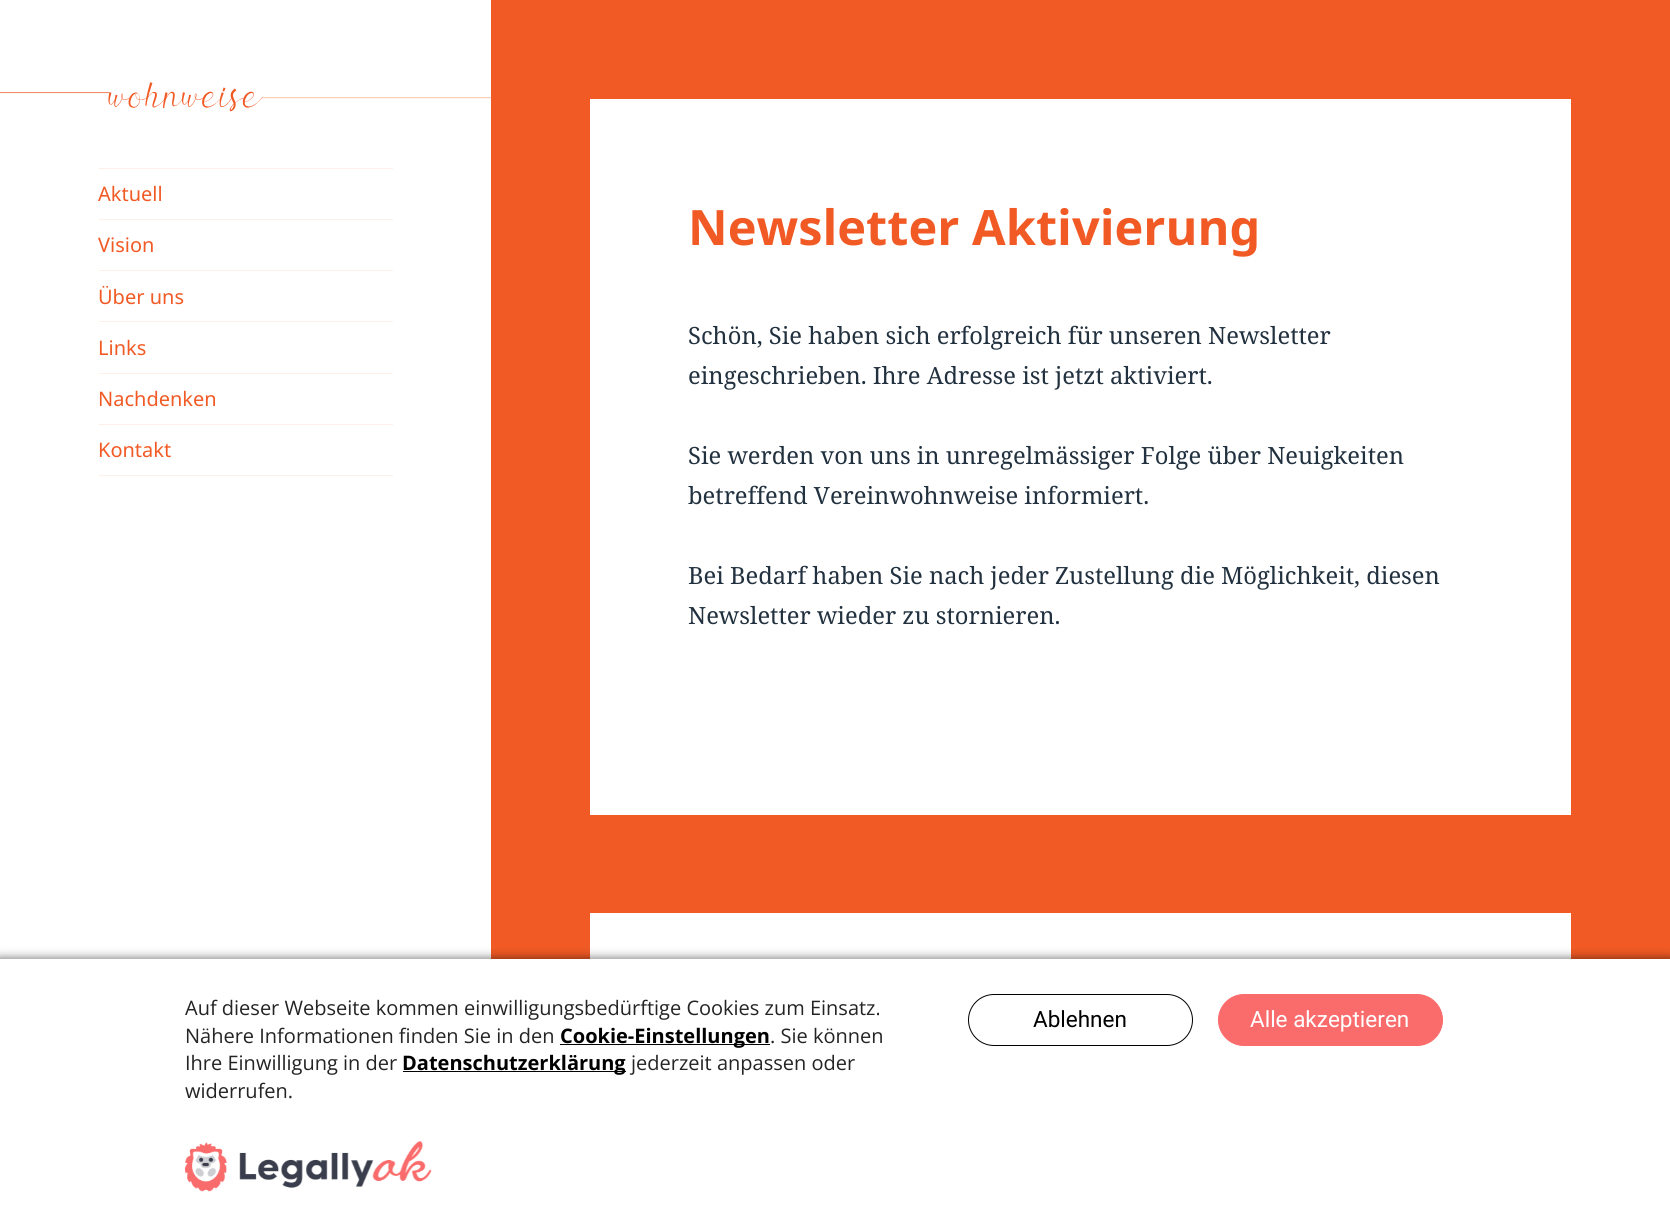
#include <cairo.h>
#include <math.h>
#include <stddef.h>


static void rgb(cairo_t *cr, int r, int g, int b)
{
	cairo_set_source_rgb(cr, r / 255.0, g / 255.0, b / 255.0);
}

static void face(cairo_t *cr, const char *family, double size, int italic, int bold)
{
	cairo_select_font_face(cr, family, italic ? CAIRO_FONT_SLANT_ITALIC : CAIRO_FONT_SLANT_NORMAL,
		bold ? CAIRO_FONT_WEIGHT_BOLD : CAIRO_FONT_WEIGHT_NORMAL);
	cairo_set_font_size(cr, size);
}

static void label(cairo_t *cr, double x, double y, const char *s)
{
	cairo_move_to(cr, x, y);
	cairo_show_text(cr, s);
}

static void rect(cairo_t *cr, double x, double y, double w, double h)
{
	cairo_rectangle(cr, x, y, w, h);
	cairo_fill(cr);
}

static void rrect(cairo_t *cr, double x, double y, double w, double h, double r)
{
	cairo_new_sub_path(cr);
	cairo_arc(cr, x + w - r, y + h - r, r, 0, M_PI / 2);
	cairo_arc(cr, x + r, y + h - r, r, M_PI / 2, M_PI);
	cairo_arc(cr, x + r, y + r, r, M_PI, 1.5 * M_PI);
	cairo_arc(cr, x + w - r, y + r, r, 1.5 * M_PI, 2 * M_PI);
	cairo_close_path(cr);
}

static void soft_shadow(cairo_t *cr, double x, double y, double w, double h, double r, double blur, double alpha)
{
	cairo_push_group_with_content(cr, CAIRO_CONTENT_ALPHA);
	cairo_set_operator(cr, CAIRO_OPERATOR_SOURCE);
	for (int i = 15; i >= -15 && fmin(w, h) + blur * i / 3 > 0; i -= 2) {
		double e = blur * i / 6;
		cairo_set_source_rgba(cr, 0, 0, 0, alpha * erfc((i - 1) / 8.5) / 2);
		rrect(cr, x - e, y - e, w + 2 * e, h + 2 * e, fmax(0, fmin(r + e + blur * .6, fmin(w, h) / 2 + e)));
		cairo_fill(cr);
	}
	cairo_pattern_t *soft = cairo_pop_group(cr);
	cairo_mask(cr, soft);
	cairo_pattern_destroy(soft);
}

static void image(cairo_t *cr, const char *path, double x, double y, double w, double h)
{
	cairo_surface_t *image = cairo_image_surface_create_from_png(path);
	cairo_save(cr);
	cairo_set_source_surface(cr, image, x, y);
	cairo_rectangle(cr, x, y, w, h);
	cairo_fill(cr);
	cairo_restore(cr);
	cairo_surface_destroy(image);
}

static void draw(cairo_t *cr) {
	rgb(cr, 241, 90, 36);
	cairo_paint(cr);
	rgb(cr, 255, 255, 255);
	rect(cr, 0, 0, 491, 959);
	image(cr, "image0.png", 0, 82, 491, 30);
	rgb(cr, 254, 239, 233);
	rect(cr, 99, 168, 294, 1);
	rect(cr, 99, 475, 294, 1);
	face(cr, "Noto Sans", 20, 0, 0);
	rgb(cr, 241, 90, 36);
	label(cr, 98, 201, "Aktuell");
	rgb(cr, 254, 239, 233);
	rect(cr, 99, 219, 294, 1);
	rgb(cr, 241, 90, 36);
	label(cr, 98, 252, "Vision");
	rgb(cr, 254, 239, 233);
	rect(cr, 99, 270, 294, 1);
	rgb(cr, 241, 90, 36);
	label(cr, 98, 304, "Über uns");
	rgb(cr, 254, 239, 233);
	rect(cr, 99, 321, 294, 1);
	rgb(cr, 241, 90, 36);
	label(cr, 98, 355, "Links");
	rgb(cr, 254, 239, 233);
	rect(cr, 99, 373, 294, 1);
	rgb(cr, 241, 90, 36);
	label(cr, 98, 406, "Nachdenken");
	rgb(cr, 254, 239, 233);
	rect(cr, 99, 424, 294, 1);
	rgb(cr, 241, 90, 36);
	label(cr, 98, 457, "Kontakt");
	rgb(cr, 255, 255, 255);
	rect(cr, 590, 99, 981, 716);
	face(cr, "Noto Sans", 48.75, 0, 1);
	rgb(cr, 241, 90, 36);
	label(cr, 688, 245, "Newsletter Aktivierung");
	face(cr, "Noto Serif", 23.75, 0, 0);
	rgb(cr, 34, 49, 63);
	label(cr, 688, 344, "Schön, Sie haben sich erfolgreich für unseren Newsletter");
	label(cr, 688, 384, "eingeschrieben. Ihre Adresse ist jetzt aktiviert.");
	label(cr, 688, 464, "Sie werden von uns in unregelmässiger Folge über Neuigkeiten");
	label(cr, 688, 504, "betreffend Vereinwohnweise informiert.");
	label(cr, 688, 584, "Bei Bedarf haben Sie nach jeder Zustellung die Möglichkeit, diesen");
	label(cr, 688, 624, "Newsletter wieder zu stornieren.");
	rgb(cr, 255, 255, 255);
	rect(cr, 590, 913, 981, 46);
	rgb(cr, 0, 0, 0);
	soft_shadow(cr, -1, 960, 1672, 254, 0, 5.5, 0.75);
	rgb(cr, 255, 255, 255);
	rect(cr, 0, 959, 1670, 251);
	face(cr, "Open Sans", 20, 0, 0);
	rgb(cr, 36, 36, 36);
	label(cr, 185, 1015, "Auf dieser Webseite kommen einwilligungsbedürftige Cookies zum Einsatz.");
	label(cr, 185, 1043, "Nähere Informationen finden Sie in den");
	rgb(cr, 0, 0, 0);
	rect(cr, 560, 1044, 210, 1);
	face(cr, "Open Sans", 20, 0, 1);
	label(cr, 560, 1043, "Cookie-Einstellungen");
	face(cr, "Open Sans", 20, 0, 0);
	rgb(cr, 36, 36, 36);
	label(cr, 770, 1043, ". Sie können");
	label(cr, 185, 1070, "Ihre Einwilligung in der");
	rgb(cr, 0, 0, 0);
	rect(cr, 403, 1071, 223, 1);
	face(cr, "Open Sans", 20, 0, 1);
	label(cr, 402, 1070, "Datenschutzerklärung");
	face(cr, "Open Sans", 20, 0, 0);
	rgb(cr, 36, 36, 36);
	label(cr, 631, 1070, "jederzeit anpassen oder");
	label(cr, 185, 1098, "widerrufen.");
	rrect(cr, 968.5, 994.5, 224, 51, 25.5);
	rgb(cr, 0, 0, 0);
	cairo_set_line_width(cr, 1);
	cairo_stroke(cr);
	face(cr, "Roboto", 22.5, 0, 0);
	label(cr, 1033, 1027, "Ablehnen");
	rgb(cr, 250, 107, 107);
	rrect(cr, 1218.5, 994.5, 224, 51, 25.5);
	cairo_fill_preserve(cr);
	cairo_stroke(cr);
	rgb(cr, 255, 255, 255);
	label(cr, 1250, 1027, "Alle akzeptieren");
	image(cr, "image1.png", 185, 1141, 247, 51);
}

int main(void) {
	cairo_surface_t *surface = cairo_image_surface_create(CAIRO_FORMAT_RGB24, 1670, 1210);
	cairo_t *cr = cairo_create(surface);
	cairo_font_options_t *options = cairo_font_options_create();
	cairo_font_options_set_hint_metrics(options, CAIRO_HINT_METRICS_OFF);
	cairo_font_options_set_hint_style(options, CAIRO_HINT_STYLE_NONE);
	cairo_set_font_options(cr, options);
	cairo_set_miter_limit(cr, 4);
	draw(cr);
	cairo_surface_write_to_png(surface, "render.png");
	cairo_font_options_destroy(options);
	cairo_destroy(cr);
	cairo_surface_destroy(surface);
	return 0;
}
